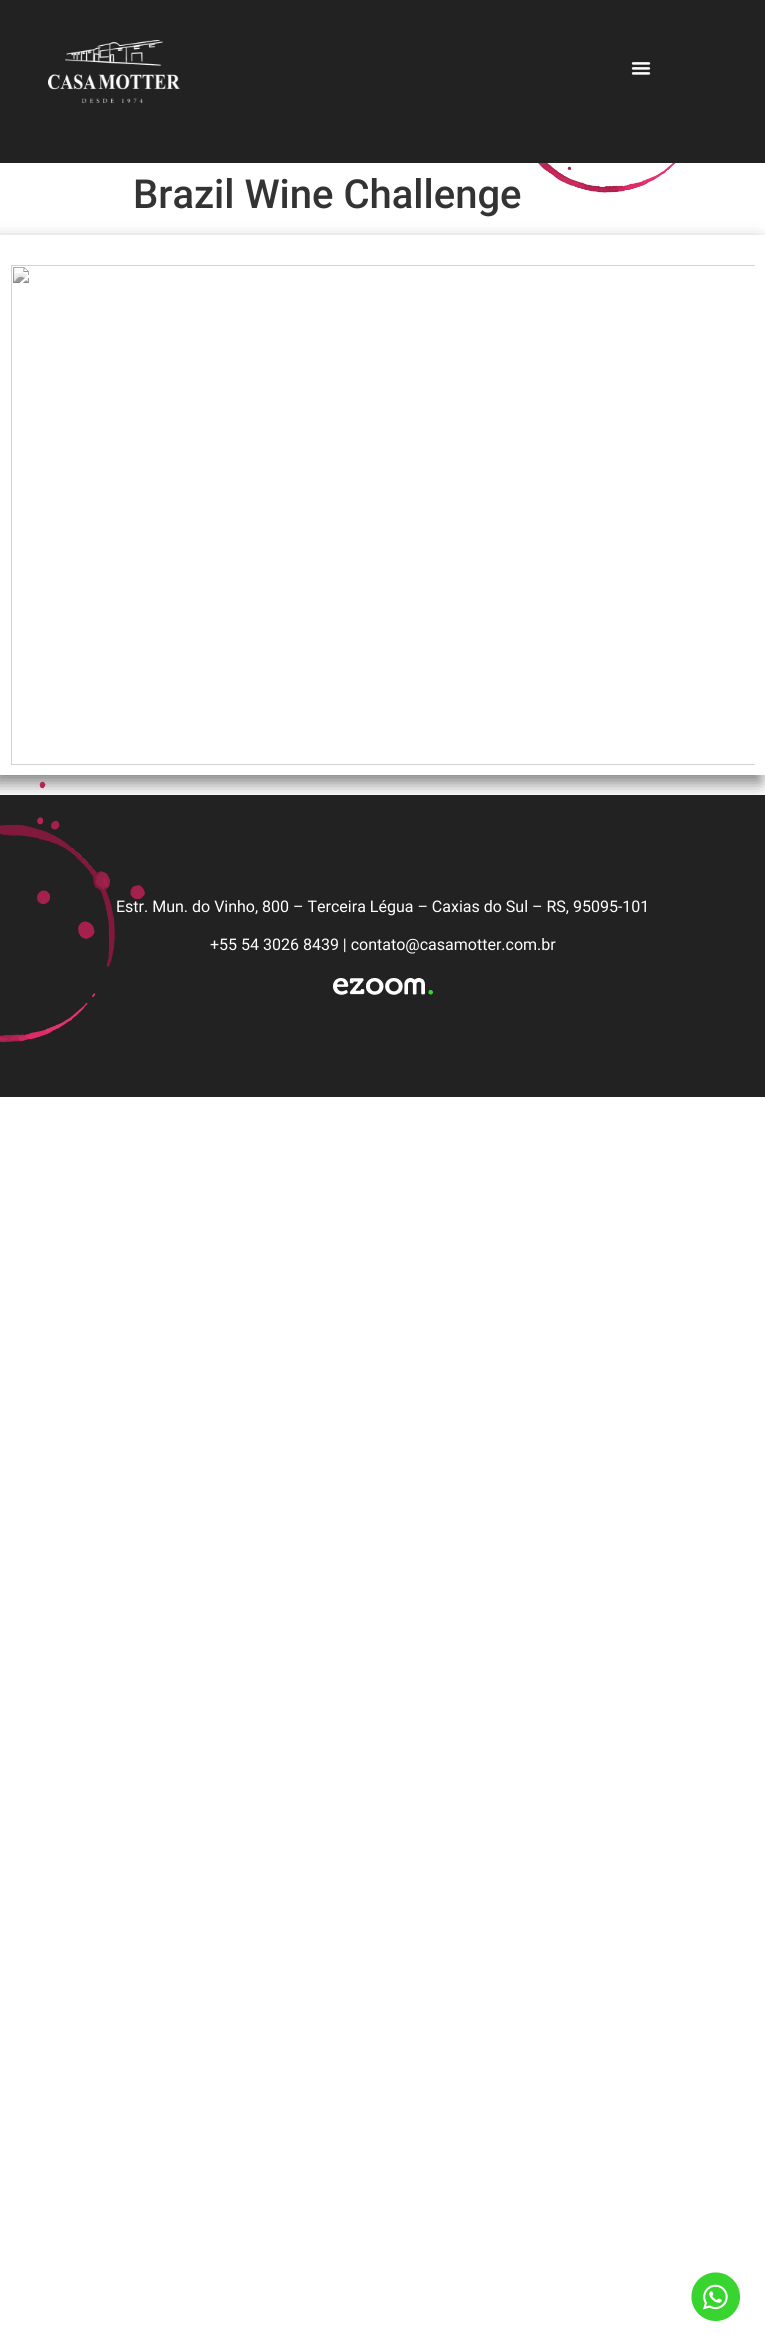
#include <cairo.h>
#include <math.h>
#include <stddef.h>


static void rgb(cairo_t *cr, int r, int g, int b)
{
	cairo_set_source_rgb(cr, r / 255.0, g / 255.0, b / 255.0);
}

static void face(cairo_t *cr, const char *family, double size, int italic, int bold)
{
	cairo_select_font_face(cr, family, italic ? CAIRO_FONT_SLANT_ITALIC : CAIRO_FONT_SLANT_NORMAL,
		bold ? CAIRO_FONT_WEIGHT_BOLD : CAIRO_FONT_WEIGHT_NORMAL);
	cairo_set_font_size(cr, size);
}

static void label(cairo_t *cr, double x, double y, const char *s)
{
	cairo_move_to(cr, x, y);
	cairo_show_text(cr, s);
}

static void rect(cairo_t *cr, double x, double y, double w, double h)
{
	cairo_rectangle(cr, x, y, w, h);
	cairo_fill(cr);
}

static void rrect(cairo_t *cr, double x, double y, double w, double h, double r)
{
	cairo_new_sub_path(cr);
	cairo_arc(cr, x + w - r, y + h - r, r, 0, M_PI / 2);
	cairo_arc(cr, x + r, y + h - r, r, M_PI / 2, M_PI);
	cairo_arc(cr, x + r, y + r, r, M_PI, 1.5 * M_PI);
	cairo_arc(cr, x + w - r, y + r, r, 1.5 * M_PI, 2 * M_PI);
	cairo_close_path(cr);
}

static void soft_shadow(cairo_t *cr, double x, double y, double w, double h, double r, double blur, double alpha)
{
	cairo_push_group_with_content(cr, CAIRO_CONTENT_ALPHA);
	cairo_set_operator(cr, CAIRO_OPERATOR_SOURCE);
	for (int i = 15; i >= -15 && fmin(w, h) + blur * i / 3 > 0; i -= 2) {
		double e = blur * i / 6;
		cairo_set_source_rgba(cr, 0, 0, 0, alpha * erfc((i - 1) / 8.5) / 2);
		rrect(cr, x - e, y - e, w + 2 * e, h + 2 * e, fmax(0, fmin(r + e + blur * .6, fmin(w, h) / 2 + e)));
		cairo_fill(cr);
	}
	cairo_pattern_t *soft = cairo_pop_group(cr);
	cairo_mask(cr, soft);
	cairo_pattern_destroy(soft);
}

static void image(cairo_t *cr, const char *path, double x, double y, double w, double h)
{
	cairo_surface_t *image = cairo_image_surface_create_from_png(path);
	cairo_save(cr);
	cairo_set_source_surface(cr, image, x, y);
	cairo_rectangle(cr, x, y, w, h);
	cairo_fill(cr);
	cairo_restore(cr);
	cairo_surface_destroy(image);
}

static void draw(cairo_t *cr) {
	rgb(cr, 255, 255, 255);
	cairo_paint(cr);
	rgb(cr, 34, 34, 34);
	rect(cr, 0, 0, 765, 163);
	image(cr, "image0.png", 48, 40, 133, 63);
	image(cr, "image1.png", 631, 62, 20, 13);
	face(cr, "Roboto Medium", 40, 0, 0);
	rgb(cr, 51, 51, 51);
	label(cr, 133, 208, "Brazil Wine Challenge");
	cairo_save(cr);
	cairo_set_fill_rule(cr, CAIRO_FILL_RULE_EVEN_ODD);
	cairo_new_path(cr);
	cairo_move_to(cr, 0, 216);
	cairo_line_to(cr, 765, 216);
	cairo_line_to(cr, 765, 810);
	cairo_line_to(cr, 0, 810);
	cairo_close_path(cr);
	cairo_move_to(cr, 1, 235);
	cairo_line_to(cr, 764, 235);
	cairo_curve_to(cr, 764.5, 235, 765, 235.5, 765, 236);
	cairo_line_to(cr, 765, 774);
	cairo_curve_to(cr, 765, 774.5, 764.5, 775, 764, 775);
	cairo_line_to(cr, 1, 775);
	cairo_curve_to(cr, 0.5, 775, 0, 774.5, 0, 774);
	cairo_line_to(cr, 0, 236);
	cairo_curve_to(cr, 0, 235.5, 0.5, 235, 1, 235);
	cairo_close_path(cr);
	cairo_clip(cr);
	rgb(cr, 0, 0, 0);
	soft_shadow(cr, -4, 243, 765, 540, 1, 8.5, 0.5);
	cairo_restore(cr);
	image(cr, "image2.png", 11, 265, 744, 500);
	rgb(cr, 34, 34, 34);
	rect(cr, 0, 795, 765, 302);
	image(cr, "image3.png", 538, 163, 138, 30);
	face(cr, "Roboto", 16, 0, 0);
	rgb(cr, 255, 255, 255);
	label(cr, 116, 912, "Estr. Mun. do Vinho, 800 – Terceira Légua – Caxias do Sul – RS, 95095-101");
	image(cr, "image4.png", 0, 781, 145, 262);
	label(cr, 210, 950, "+55 54 3026 8439 | contato@casamotter.com.br");
	image(cr, "image5.png", 333, 978, 100, 17);
	image(cr, "image6.png", 691, 2272, 49, 49);
}

int main(void) {
	cairo_surface_t *surface = cairo_image_surface_create(CAIRO_FORMAT_RGB24, 765, 2349);
	cairo_t *cr = cairo_create(surface);
	cairo_font_options_t *options = cairo_font_options_create();
	cairo_font_options_set_hint_metrics(options, CAIRO_HINT_METRICS_OFF);
	cairo_font_options_set_hint_style(options, CAIRO_HINT_STYLE_NONE);
	cairo_set_font_options(cr, options);
	cairo_set_miter_limit(cr, 4);
	draw(cr);
	cairo_surface_write_to_png(surface, "render.png");
	cairo_font_options_destroy(options);
	cairo_destroy(cr);
	cairo_surface_destroy(surface);
	return 0;
}
